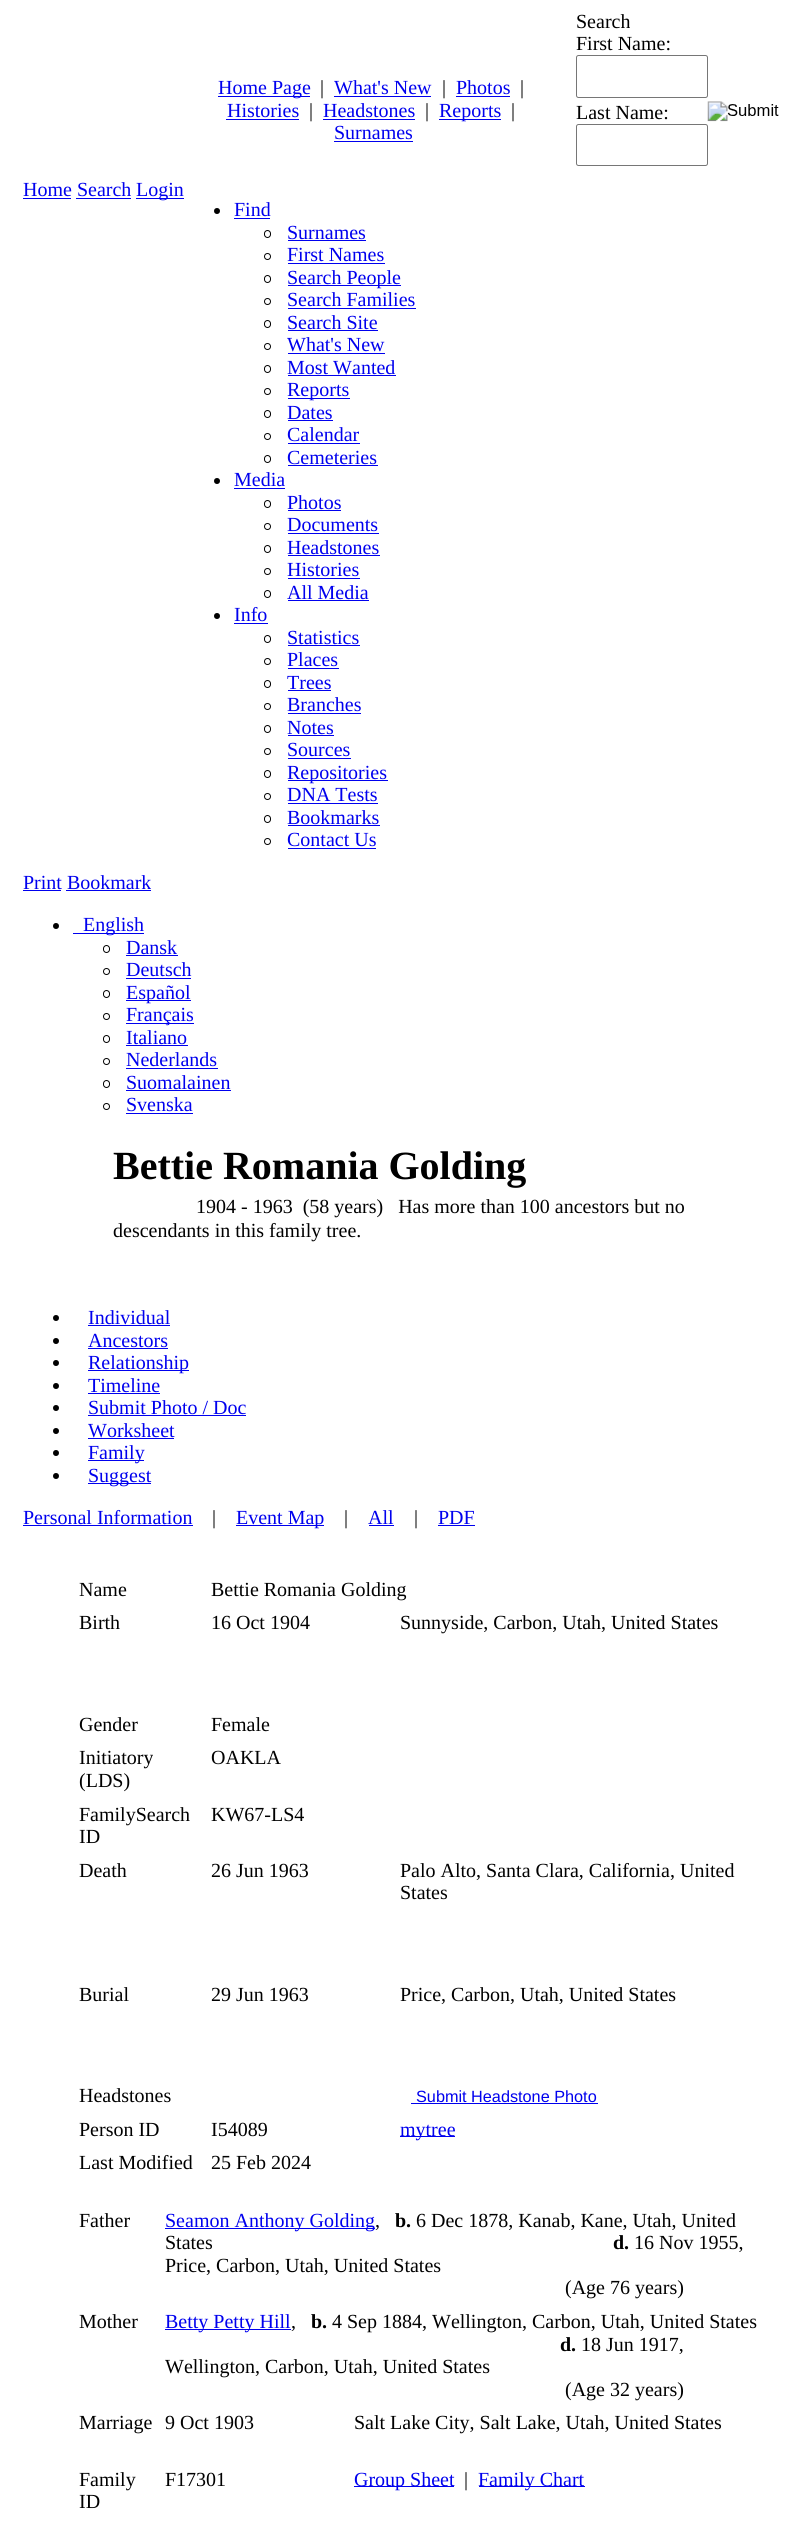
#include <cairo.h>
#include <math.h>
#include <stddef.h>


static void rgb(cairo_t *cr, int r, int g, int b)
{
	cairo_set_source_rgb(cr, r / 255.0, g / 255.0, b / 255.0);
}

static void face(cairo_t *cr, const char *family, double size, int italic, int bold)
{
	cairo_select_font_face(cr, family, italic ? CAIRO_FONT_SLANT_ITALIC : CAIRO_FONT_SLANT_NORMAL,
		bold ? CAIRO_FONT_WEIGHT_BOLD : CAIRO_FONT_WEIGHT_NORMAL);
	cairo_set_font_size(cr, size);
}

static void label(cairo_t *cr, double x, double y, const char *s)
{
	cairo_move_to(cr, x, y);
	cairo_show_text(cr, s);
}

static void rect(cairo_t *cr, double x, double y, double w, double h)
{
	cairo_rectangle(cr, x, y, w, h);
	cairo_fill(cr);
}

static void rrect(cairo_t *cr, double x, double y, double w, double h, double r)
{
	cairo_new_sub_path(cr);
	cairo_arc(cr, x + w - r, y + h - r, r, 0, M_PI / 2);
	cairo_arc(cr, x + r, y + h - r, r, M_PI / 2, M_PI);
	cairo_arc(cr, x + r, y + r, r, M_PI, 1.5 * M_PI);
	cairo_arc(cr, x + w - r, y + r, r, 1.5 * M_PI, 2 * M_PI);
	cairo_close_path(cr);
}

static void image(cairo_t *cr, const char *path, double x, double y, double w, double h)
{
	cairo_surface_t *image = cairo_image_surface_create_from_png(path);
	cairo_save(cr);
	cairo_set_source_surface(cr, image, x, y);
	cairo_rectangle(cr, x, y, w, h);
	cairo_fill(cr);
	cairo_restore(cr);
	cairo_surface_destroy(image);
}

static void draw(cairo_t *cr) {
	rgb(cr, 255, 255, 255);
	cairo_paint(cr);
	rgb(cr, 0, 0, 238);
	rect(cr, 218, 96, 92, 1);
	face(cr, "Liberation Serif", 20, 0, 0);
	label(cr, 218, 94, "Home Page");
	rgb(cr, 0, 0, 0);
	label(cr, 320, 94, "|");
	rgb(cr, 0, 0, 238);
	label(cr, 334, 94, "What's New");
	rect(cr, 334, 96, 97, 1);
	rgb(cr, 0, 0, 0);
	label(cr, 442, 94, "|");
	rgb(cr, 0, 0, 238);
	label(cr, 456, 94, "Photos");
	rect(cr, 456, 96, 54, 1);
	rgb(cr, 0, 0, 0);
	label(cr, 520, 94, "|");
	rgb(cr, 0, 0, 238);
	label(cr, 227, 117, "Histories");
	rect(cr, 226, 119, 73, 1);
	rgb(cr, 0, 0, 0);
	label(cr, 309, 117, "|");
	rgb(cr, 0, 0, 238);
	label(cr, 323, 117, "Headstones");
	rect(cr, 323, 119, 92, 1);
	rgb(cr, 0, 0, 0);
	label(cr, 425, 117, "|");
	rgb(cr, 0, 0, 238);
	rect(cr, 439, 119, 62, 1);
	label(cr, 439, 117, "Reports");
	rgb(cr, 0, 0, 0);
	label(cr, 511, 117, "|");
	rgb(cr, 0, 0, 238);
	label(cr, 334, 139, "Surnames");
	rect(cr, 334, 141, 79, 1);
	rgb(cr, 0, 0, 0);
	label(cr, 576, 28, "Search");
	label(cr, 576, 50, "First Name:");
	rrect(cr, 576.5, 55.5, 131, 42, 2);
	rgb(cr, 118, 118, 118);
	cairo_set_line_width(cr, 1);
	cairo_stroke(cr);
	rgb(cr, 0, 0, 0);
	label(cr, 576, 119, "Last Name:");
	rrect(cr, 576.5, 124.5, 131, 41, 2);
	rgb(cr, 118, 118, 118);
	cairo_stroke(cr);
	image(cr, "image0.png", 707, 101, 72, 21);
	rgb(cr, 0, 0, 238);
	label(cr, 23, 196, "Home Search");
	rect(cr, 23, 198, 48, 1);
	rect(cr, 136, 198, 48, 1);
	label(cr, 136, 196, "Login");
	rect(cr, 76, 198, 55, 1);
	rgb(cr, 0, 0, 0);
	cairo_new_path(cr);
	cairo_arc(cr, 217, 211, 3, 0, 2 * M_PI);
	cairo_fill(cr);
	rgb(cr, 0, 0, 238);
	label(cr, 234, 216, "Find");
	rect(cr, 234, 218, 36, 1);
	rrect(cr, 264.5, 230.5, 6, 7, 3);
	rgb(cr, 0, 0, 0);
	cairo_stroke(cr);
	rgb(cr, 0, 0, 238);
	label(cr, 287, 239, "Surnames");
	rect(cr, 288, 240, 78, 1);
	cairo_new_path(cr);
	cairo_arc(cr, 267.5, 256.5, 3, 0, 2 * M_PI);
	rgb(cr, 0, 0, 0);
	cairo_stroke(cr);
	rgb(cr, 0, 0, 238);
	label(cr, 287, 261, "First Names");
	rect(cr, 288, 263, 97, 1);
	rrect(cr, 264.5, 275.5, 6, 7, 3);
	rgb(cr, 0, 0, 0);
	cairo_stroke(cr);
	rgb(cr, 0, 0, 238);
	rect(cr, 288, 285, 113, 1);
	label(cr, 287, 284, "Search People");
	cairo_new_path(cr);
	cairo_arc(cr, 267.5, 301.5, 3, 0, 2 * M_PI);
	rgb(cr, 0, 0, 0);
	cairo_stroke(cr);
	rgb(cr, 0, 0, 238);
	label(cr, 287, 306, "Search Families");
	rect(cr, 288, 308, 128, 1);
	rrect(cr, 264.5, 320.5, 6, 7, 3);
	rgb(cr, 0, 0, 0);
	cairo_stroke(cr);
	rgb(cr, 0, 0, 238);
	label(cr, 287, 329, "Search Site");
	rect(cr, 288, 330, 90, 1);
	cairo_new_path(cr);
	cairo_arc(cr, 267.5, 346.5, 3, 0, 2 * M_PI);
	rgb(cr, 0, 0, 0);
	cairo_stroke(cr);
	rgb(cr, 0, 0, 238);
	label(cr, 287, 351, "What's New");
	rect(cr, 288, 353, 97, 1);
	rrect(cr, 264.5, 365.5, 6, 7, 3);
	rgb(cr, 0, 0, 0);
	cairo_stroke(cr);
	rgb(cr, 0, 0, 238);
	label(cr, 287, 374, "Most Wanted");
	rect(cr, 288, 375, 108, 1);
	cairo_new_path(cr);
	cairo_arc(cr, 267.5, 391.5, 3, 0, 2 * M_PI);
	rgb(cr, 0, 0, 0);
	cairo_stroke(cr);
	rgb(cr, 0, 0, 238);
	rect(cr, 288, 398, 62, 1);
	label(cr, 287, 396, "Reports");
	rrect(cr, 264.5, 410.5, 6, 7, 3);
	rgb(cr, 0, 0, 0);
	cairo_stroke(cr);
	rgb(cr, 0, 0, 238);
	label(cr, 287, 419, "Dates");
	rect(cr, 288, 420, 45, 1);
	cairo_new_path(cr);
	cairo_arc(cr, 267.5, 436.5, 3, 0, 2 * M_PI);
	rgb(cr, 0, 0, 0);
	cairo_stroke(cr);
	rgb(cr, 0, 0, 238);
	label(cr, 287, 441, "Calendar");
	rect(cr, 288, 443, 72, 1);
	rrect(cr, 264.5, 455.5, 6, 7, 3);
	rgb(cr, 0, 0, 0);
	cairo_stroke(cr);
	rgb(cr, 0, 0, 238);
	label(cr, 287, 464, "Cemeteries");
	rect(cr, 288, 465, 90, 1);
	rgb(cr, 0, 0, 0);
	cairo_new_path(cr);
	cairo_arc(cr, 217, 481, 3, 0, 2 * M_PI);
	cairo_fill(cr);
	rgb(cr, 0, 0, 238);
	label(cr, 234, 486, "Media");
	rect(cr, 234, 488, 51, 1);
	rrect(cr, 264.5, 500.5, 6, 7, 3);
	rgb(cr, 0, 0, 0);
	cairo_stroke(cr);
	rgb(cr, 0, 0, 238);
	label(cr, 287, 509, "Photos");
	rect(cr, 288, 510, 53, 1);
	cairo_new_path(cr);
	cairo_arc(cr, 267.5, 526.5, 3, 0, 2 * M_PI);
	rgb(cr, 0, 0, 0);
	cairo_stroke(cr);
	rgb(cr, 0, 0, 238);
	label(cr, 287, 531, "Documents");
	rect(cr, 288, 533, 91, 1);
	rrect(cr, 264.5, 545.5, 6, 7, 3);
	rgb(cr, 0, 0, 0);
	cairo_stroke(cr);
	rgb(cr, 0, 0, 238);
	label(cr, 287, 554, "Headstones");
	rect(cr, 288, 555, 92, 1);
	cairo_new_path(cr);
	cairo_arc(cr, 267.5, 571.5, 3, 0, 2 * M_PI);
	rgb(cr, 0, 0, 0);
	cairo_stroke(cr);
	rgb(cr, 0, 0, 238);
	label(cr, 287, 576, "Histories");
	rect(cr, 288, 578, 72, 1);
	rrect(cr, 264.5, 590.5, 6, 7, 3);
	rgb(cr, 0, 0, 0);
	cairo_stroke(cr);
	rgb(cr, 0, 0, 238);
	label(cr, 287, 599, "All Media");
	rect(cr, 288, 600, 81, 1);
	rgb(cr, 0, 0, 0);
	cairo_new_path(cr);
	cairo_arc(cr, 217, 616, 3, 0, 2 * M_PI);
	cairo_fill(cr);
	rgb(cr, 0, 0, 238);
	label(cr, 234, 621, "Info");
	rect(cr, 234, 623, 34, 1);
	rrect(cr, 264.5, 635.5, 6, 7, 3);
	rgb(cr, 0, 0, 0);
	cairo_stroke(cr);
	rgb(cr, 0, 0, 238);
	label(cr, 287, 644, "Statistics");
	rect(cr, 288, 645, 72, 1);
	cairo_new_path(cr);
	cairo_arc(cr, 267.5, 661.5, 3, 0, 2 * M_PI);
	rgb(cr, 0, 0, 0);
	cairo_stroke(cr);
	rgb(cr, 0, 0, 238);
	label(cr, 287, 666, "Places");
	rect(cr, 288, 668, 51, 1);
	rrect(cr, 264.5, 680.5, 6, 7, 3);
	rgb(cr, 0, 0, 0);
	cairo_stroke(cr);
	rgb(cr, 0, 0, 238);
	label(cr, 287, 689, "Trees");
	rect(cr, 288, 690, 43, 1);
	cairo_new_path(cr);
	cairo_arc(cr, 267.5, 706.5, 3, 0, 2 * M_PI);
	rgb(cr, 0, 0, 0);
	cairo_stroke(cr);
	rgb(cr, 0, 0, 238);
	label(cr, 287, 711, "Branches");
	rect(cr, 288, 713, 73, 1);
	rrect(cr, 264.5, 725.5, 6, 7, 3);
	rgb(cr, 0, 0, 0);
	cairo_stroke(cr);
	rgb(cr, 0, 0, 238);
	label(cr, 287, 734, "Notes");
	rect(cr, 288, 735, 46, 1);
	cairo_new_path(cr);
	cairo_arc(cr, 267.5, 751.5, 3, 0, 2 * M_PI);
	rgb(cr, 0, 0, 0);
	cairo_stroke(cr);
	rgb(cr, 0, 0, 238);
	label(cr, 287, 756, "Sources");
	rect(cr, 288, 758, 63, 1);
	rrect(cr, 264.5, 770.5, 6, 7, 3);
	rgb(cr, 0, 0, 0);
	cairo_stroke(cr);
	rgb(cr, 0, 0, 238);
	rect(cr, 288, 780, 100, 1);
	label(cr, 287, 779, "Repositories");
	cairo_new_path(cr);
	cairo_arc(cr, 267.5, 796.5, 3, 0, 2 * M_PI);
	rgb(cr, 0, 0, 0);
	cairo_stroke(cr);
	rgb(cr, 0, 0, 238);
	label(cr, 287, 801, "DNA Tests");
	rect(cr, 288, 803, 90, 1);
	rrect(cr, 264.5, 815.5, 6, 7, 3);
	rgb(cr, 0, 0, 0);
	cairo_stroke(cr);
	rgb(cr, 0, 0, 238);
	label(cr, 287, 824, "Bookmarks");
	rect(cr, 288, 825, 92, 1);
	cairo_new_path(cr);
	cairo_arc(cr, 267.5, 841.5, 3, 0, 2 * M_PI);
	rgb(cr, 0, 0, 0);
	cairo_stroke(cr);
	rgb(cr, 0, 0, 238);
	label(cr, 287, 846, "Contact Us");
	rect(cr, 288, 848, 88, 1);
	label(cr, 23, 889, "Print Bookmark");
	rect(cr, 23, 890, 38, 1);
	rect(cr, 66, 890, 85, 1);
	rgb(cr, 0, 0, 0);
	cairo_new_path(cr);
	cairo_arc(cr, 56, 926, 3, 0, 2 * M_PI);
	cairo_fill(cr);
	rgb(cr, 0, 0, 238);
	rect(cr, 73, 933, 71, 1);
	label(cr, 83, 931, "English");
	rrect(cr, 103.5, 945.5, 6, 7, 3);
	rgb(cr, 0, 0, 0);
	cairo_stroke(cr);
	rgb(cr, 0, 0, 238);
	label(cr, 126, 954, "Dansk");
	rect(cr, 126, 955, 52, 1);
	cairo_new_path(cr);
	cairo_arc(cr, 106.5, 971.5, 3, 0, 2 * M_PI);
	rgb(cr, 0, 0, 0);
	cairo_stroke(cr);
	rgb(cr, 0, 0, 238);
	label(cr, 126, 976, "Deutsch");
	rect(cr, 126, 978, 65, 1);
	rrect(cr, 103.5, 990.5, 6, 7, 3);
	rgb(cr, 0, 0, 0);
	cairo_stroke(cr);
	rgb(cr, 0, 0, 238);
	rect(cr, 126, 1000, 65, 1);
	label(cr, 126, 999, "Español");
	cairo_new_path(cr);
	cairo_arc(cr, 106.5, 1016.5, 3, 0, 2 * M_PI);
	rgb(cr, 0, 0, 0);
	cairo_stroke(cr);
	rgb(cr, 0, 0, 238);
	rect(cr, 126, 1023, 68, 1);
	label(cr, 126, 1021, "Français");
	rrect(cr, 103.5, 1035.5, 6, 7, 3);
	rgb(cr, 0, 0, 0);
	cairo_stroke(cr);
	rgb(cr, 0, 0, 238);
	label(cr, 126, 1044, "Italiano");
	rect(cr, 126, 1045, 62, 1);
	cairo_new_path(cr);
	cairo_arc(cr, 106.5, 1061.5, 3, 0, 2 * M_PI);
	rgb(cr, 0, 0, 0);
	cairo_stroke(cr);
	rgb(cr, 0, 0, 238);
	label(cr, 126, 1066, "Nederlands");
	rect(cr, 126, 1068, 92, 1);
	rrect(cr, 103.5, 1080.5, 6, 7, 3);
	rgb(cr, 0, 0, 0);
	cairo_stroke(cr);
	rgb(cr, 0, 0, 238);
	label(cr, 126, 1089, "Suomalainen");
	rect(cr, 126, 1090, 105, 1);
	cairo_new_path(cr);
	cairo_arc(cr, 106.5, 1106.5, 3, 0, 2 * M_PI);
	rgb(cr, 0, 0, 0);
	cairo_stroke(cr);
	rgb(cr, 0, 0, 238);
	label(cr, 126, 1111, "Svenska");
	rect(cr, 126, 1113, 67, 1);
	face(cr, "Liberation Serif", 40, 0, 1);
	rgb(cr, 0, 0, 0);
	label(cr, 113, 1179, "Bettie Romania Golding");
	face(cr, "Liberation Serif", 20, 0, 0);
	label(cr, 196, 1213, "1904 - 1963  (58 years)   Has more than 100 ancestors but no");
	label(cr, 113, 1237, "descendants in this family tree.");
	cairo_new_path(cr);
	cairo_arc(cr, 56, 1318, 3, 0, 2 * M_PI);
	cairo_fill(cr);
	rgb(cr, 0, 0, 238);
	label(cr, 88, 1324, "Individual");
	rect(cr, 88, 1325, 82, 1);
	rgb(cr, 0, 0, 0);
	cairo_new_path(cr);
	cairo_arc(cr, 56, 1341, 3, 0, 2 * M_PI);
	cairo_fill(cr);
	rgb(cr, 0, 0, 238);
	label(cr, 88, 1347, "Ancestors");
	rect(cr, 88, 1348, 80, 1);
	rgb(cr, 0, 0, 0);
	cairo_new_path(cr);
	cairo_arc(cr, 56, 1363, 3, 0, 2 * M_PI);
	cairo_fill(cr);
	rgb(cr, 0, 0, 238);
	rect(cr, 88, 1370, 101, 1);
	label(cr, 88, 1369, "Relationship");
	rgb(cr, 0, 0, 0);
	cairo_new_path(cr);
	cairo_arc(cr, 56, 1386, 3, 0, 2 * M_PI);
	cairo_fill(cr);
	rgb(cr, 0, 0, 238);
	label(cr, 88, 1392, "Timeline");
	rect(cr, 88, 1393, 72, 1);
	rgb(cr, 0, 0, 0);
	cairo_new_path(cr);
	cairo_arc(cr, 56, 1408, 3, 0, 2 * M_PI);
	cairo_fill(cr);
	rgb(cr, 0, 0, 238);
	label(cr, 88, 1414, "Submit Photo / Doc");
	rect(cr, 88, 1415, 158, 1);
	rgb(cr, 0, 0, 0);
	cairo_new_path(cr);
	cairo_arc(cr, 56, 1431, 3, 0, 2 * M_PI);
	cairo_fill(cr);
	rgb(cr, 0, 0, 238);
	label(cr, 88, 1437, "Worksheet");
	rect(cr, 88, 1438, 86, 1);
	rgb(cr, 0, 0, 0);
	cairo_new_path(cr);
	cairo_arc(cr, 56, 1453, 3, 0, 2 * M_PI);
	cairo_fill(cr);
	rgb(cr, 0, 0, 238);
	rect(cr, 88, 1460, 56, 1);
	label(cr, 88, 1459, "Family");
	rgb(cr, 0, 0, 0);
	cairo_new_path(cr);
	cairo_arc(cr, 56, 1476, 3, 0, 2 * M_PI);
	cairo_fill(cr);
	rgb(cr, 0, 0, 238);
	rect(cr, 88, 1483, 63, 1);
	label(cr, 88, 1482, "Suggest");
	label(cr, 23, 1524, "Personal Information");
	rect(cr, 23, 1525, 170, 1);
	rgb(cr, 0, 0, 0);
	label(cr, 212, 1524, "|");
	rgb(cr, 0, 0, 238);
	rect(cr, 236, 1525, 88, 1);
	label(cr, 236, 1524, "Event Map");
	rgb(cr, 0, 0, 0);
	label(cr, 344, 1524, "|");
	rgb(cr, 0, 0, 238);
	label(cr, 368, 1524, "All");
	rect(cr, 369, 1525, 25, 1);
	rgb(cr, 0, 0, 0);
	label(cr, 414, 1524, "|");
	rgb(cr, 0, 0, 238);
	label(cr, 438, 1524, "PDF");
	rect(cr, 438, 1525, 37, 1);
	rgb(cr, 0, 0, 0);
	label(cr, 79, 1596, "Name");
	label(cr, 211, 1596, "Bettie Romania Golding");
	label(cr, 79, 1629, "Birth");
	label(cr, 211, 1629, "16 Oct 1904");
	label(cr, 400, 1629, "Sunnyside, Carbon, Utah, United States");
	label(cr, 79, 1731, "Gender");
	label(cr, 211, 1731, "Female");
	label(cr, 79, 1764, "Initiatory");
	label(cr, 79, 1787, "(LDS)");
	label(cr, 211, 1764, "OAKLA");
	label(cr, 79, 1821, "FamilySearch");
	label(cr, 79, 1843, "ID");
	label(cr, 211, 1821, "KW67-LS4");
	label(cr, 79, 1877, "Death");
	label(cr, 211, 1877, "26 Jun 1963");
	label(cr, 400, 1877, "Palo Alto, Santa Clara, California, United");
	label(cr, 400, 1899, "States");
	label(cr, 79, 2001, "Burial");
	label(cr, 211, 2001, "29 Jun 1963");
	label(cr, 400, 2001, "Price, Carbon, Utah, United States");
	label(cr, 79, 2102, "Headstones");
	face(cr, "Liberation Sans", 16.25, 0, 0);
	rgb(cr, 0, 0, 238);
	label(cr, 416, 2102, "Submit Headstone Photo");
	rect(cr, 411, 2103, 187, 1);
	face(cr, "Liberation Serif", 20, 0, 0);
	rgb(cr, 0, 0, 0);
	label(cr, 79, 2136, "Person ID");
	label(cr, 211, 2136, "I54089");
	rgb(cr, 0, 0, 238);
	rect(cr, 400, 2136, 55, 1);
	label(cr, 400, 2136, "mytree");
	rgb(cr, 0, 0, 0);
	label(cr, 79, 2169, "Last Modified");
	label(cr, 211, 2169, "25 Feb 2024");
	label(cr, 79, 2227, "Father");
	rgb(cr, 0, 0, 238);
	rect(cr, 165, 2228, 210, 1);
	label(cr, 165, 2227, "Seamon Anthony Golding");
	rgb(cr, 0, 0, 0);
	label(cr, 375, 2227, ",");
	face(cr, "Liberation Serif", 20, 0, 1);
	label(cr, 395, 2227, "b.");
	face(cr, "Liberation Serif", 20, 0, 0);
	label(cr, 416, 2227, "6 Dec 1878, Kanab, Kane, Utah, United");
	label(cr, 165, 2249, "States");
	face(cr, "Liberation Serif", 20, 0, 1);
	label(cr, 613, 2249, "d.");
	face(cr, "Liberation Serif", 20, 0, 0);
	label(cr, 634, 2249, "16 Nov 1955,");
	label(cr, 165, 2272, "Price, Carbon, Utah, United States");
	label(cr, 565, 2294, "(Age 76 years)");
	label(cr, 79, 2328, "Mother");
	rgb(cr, 0, 0, 238);
	rect(cr, 165, 2329, 126, 1);
	label(cr, 165, 2328, "Betty Petty Hill");
	rgb(cr, 0, 0, 0);
	label(cr, 291, 2328, ",");
	face(cr, "Liberation Serif", 20, 0, 1);
	label(cr, 311, 2328, "b.");
	face(cr, "Liberation Serif", 20, 0, 0);
	label(cr, 332, 2328, "4 Sep 1884, Wellington, Carbon, Utah, United States");
	face(cr, "Liberation Serif", 20, 0, 1);
	label(cr, 560, 2351, "d.");
	face(cr, "Liberation Serif", 20, 0, 0);
	label(cr, 581, 2351, "18 Jun 1917,");
	label(cr, 165, 2373, "Wellington, Carbon, Utah, United States");
	label(cr, 565, 2396, "(Age 32 years)");
	label(cr, 79, 2429, "Marriage");
	label(cr, 165, 2429, "9 Oct 1903");
	label(cr, 354, 2429, "Salt Lake City, Salt Lake, Utah, United States");
	label(cr, 79, 2486, "Family");
	label(cr, 79, 2508, "ID");
	label(cr, 165, 2486, "F17301");
	rgb(cr, 0, 0, 238);
	rect(cr, 354, 2486, 100, 1);
	label(cr, 354, 2486, "Group Sheet");
	rgb(cr, 0, 0, 0);
	label(cr, 464, 2486, "|");
	rgb(cr, 0, 0, 238);
	rect(cr, 479, 2486, 106, 1);
	label(cr, 478, 2486, "Family Chart");
}

int main(void) {
	cairo_surface_t *surface = cairo_image_surface_create(CAIRO_FORMAT_RGB24, 788, 2536);
	cairo_t *cr = cairo_create(surface);
	cairo_font_options_t *options = cairo_font_options_create();
	cairo_font_options_set_hint_metrics(options, CAIRO_HINT_METRICS_OFF);
	cairo_font_options_set_hint_style(options, CAIRO_HINT_STYLE_NONE);
	cairo_set_font_options(cr, options);
	cairo_set_miter_limit(cr, 4);
	draw(cr);
	cairo_surface_write_to_png(surface, "render.png");
	cairo_font_options_destroy(options);
	cairo_destroy(cr);
	cairo_surface_destroy(surface);
	return 0;
}
